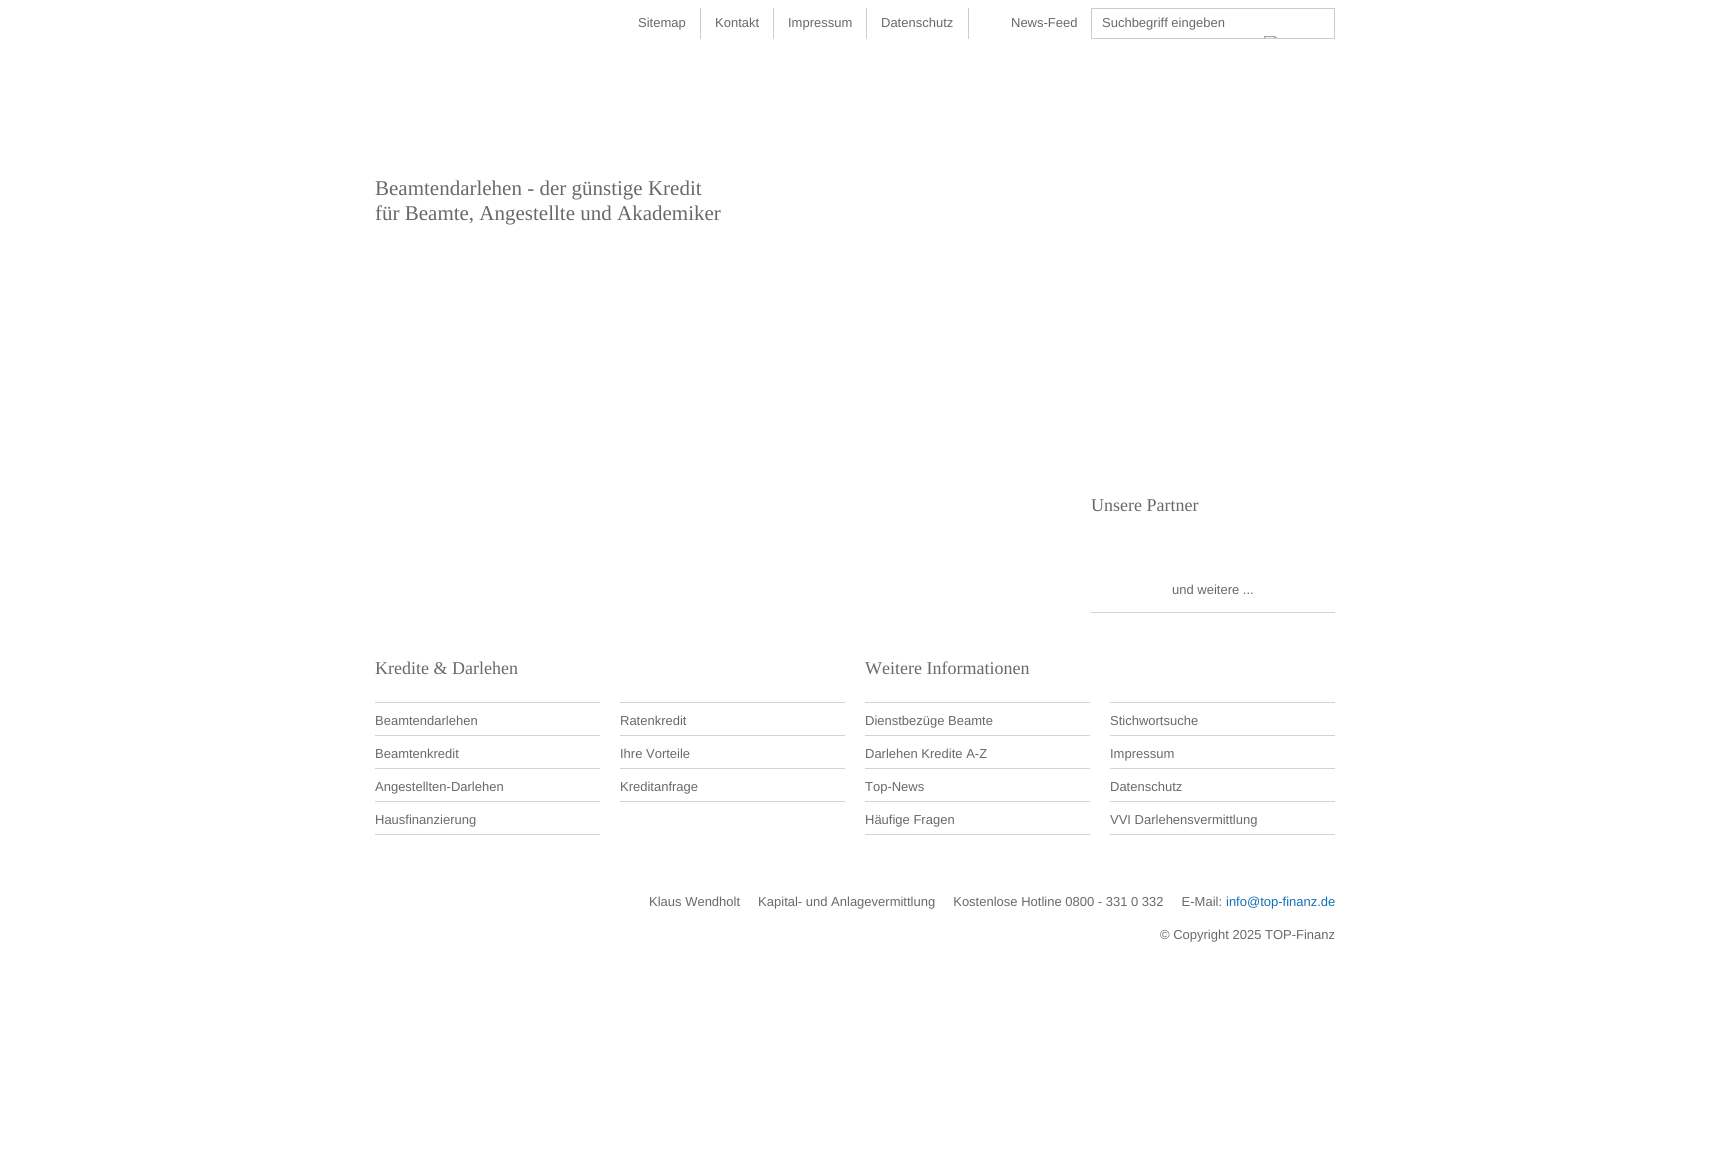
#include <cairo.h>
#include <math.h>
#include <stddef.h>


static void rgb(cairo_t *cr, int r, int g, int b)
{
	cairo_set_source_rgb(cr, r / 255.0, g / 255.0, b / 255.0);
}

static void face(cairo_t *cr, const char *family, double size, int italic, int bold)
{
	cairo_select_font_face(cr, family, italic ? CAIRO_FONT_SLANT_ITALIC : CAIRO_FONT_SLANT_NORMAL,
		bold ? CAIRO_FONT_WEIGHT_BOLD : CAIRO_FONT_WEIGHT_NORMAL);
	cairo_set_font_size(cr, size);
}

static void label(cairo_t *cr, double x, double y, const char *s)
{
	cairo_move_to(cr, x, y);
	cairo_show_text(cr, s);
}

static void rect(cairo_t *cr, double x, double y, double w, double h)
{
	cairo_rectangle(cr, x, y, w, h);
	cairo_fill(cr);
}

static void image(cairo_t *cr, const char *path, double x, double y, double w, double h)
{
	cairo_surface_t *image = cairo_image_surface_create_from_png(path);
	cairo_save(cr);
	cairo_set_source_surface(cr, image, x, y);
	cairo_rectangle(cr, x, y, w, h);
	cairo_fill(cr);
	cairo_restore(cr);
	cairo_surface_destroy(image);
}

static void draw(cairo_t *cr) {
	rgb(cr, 255, 255, 255);
	cairo_paint(cr);
	face(cr, "Liberation Sans", 13, 0, 0);
	rgb(cr, 105, 105, 105);
	label(cr, 638, 27, "Sitemap");
	rgb(cr, 204, 204, 204);
	rect(cr, 700, 8, 1, 31);
	rgb(cr, 105, 105, 105);
	label(cr, 715, 27, "Kontakt");
	rgb(cr, 204, 204, 204);
	rect(cr, 773, 8, 1, 31);
	rgb(cr, 105, 105, 105);
	label(cr, 788, 27, "Impressum");
	rgb(cr, 204, 204, 204);
	rect(cr, 866, 8, 1, 31);
	rgb(cr, 105, 105, 105);
	label(cr, 881, 27, "Datenschutz");
	rgb(cr, 204, 204, 204);
	rect(cr, 968, 8, 1, 31);
	rgb(cr, 105, 105, 105);
	label(cr, 1011, 27, "News-Feed");
	cairo_rectangle(cr, 1091.5, 8.5, 243, 30);
	rgb(cr, 204, 204, 204);
	cairo_set_line_width(cr, 1);
	cairo_stroke(cr);
	rgb(cr, 105, 105, 105);
	label(cr, 1102, 27, "Suchbegriff eingeben");
	image(cr, "image0.png", 1264, 36, 14, 2);
	face(cr, "Liberation Serif", 21, 0, 0);
	label(cr, 375, 195, "Beamtendarlehen - der günstige Kredit");
	label(cr, 375, 220, "für Beamte, Angestellte und Akademiker");
	rgb(cr, 211, 211, 211);
	rect(cr, 1091, 612, 244, 1);
	face(cr, "Liberation Serif", 18, 0, 0);
	rgb(cr, 105, 105, 105);
	label(cr, 1091, 511, "Unsere Partner");
	face(cr, "Liberation Sans", 13, 0, 0);
	label(cr, 1172, 594, "und weitere ...");
	face(cr, "Liberation Serif", 18, 0, 0);
	label(cr, 375, 674, "Kredite & Darlehen");
	rgb(cr, 211, 211, 211);
	rect(cr, 375, 702, 225, 1);
	rect(cr, 375, 735, 225, 1);
	face(cr, "Liberation Sans", 13, 0, 0);
	rgb(cr, 105, 105, 105);
	label(cr, 375, 725, "Beamtendarlehen");
	rgb(cr, 211, 211, 211);
	rect(cr, 375, 768, 225, 1);
	rgb(cr, 105, 105, 105);
	label(cr, 375, 758, "Beamtenkredit");
	rgb(cr, 211, 211, 211);
	rect(cr, 375, 801, 225, 1);
	rgb(cr, 105, 105, 105);
	label(cr, 375, 791, "Angestellten-Darlehen");
	rgb(cr, 211, 211, 211);
	rect(cr, 375, 834, 225, 1);
	rgb(cr, 105, 105, 105);
	label(cr, 375, 824, "Hausfinanzierung");
	rgb(cr, 211, 211, 211);
	rect(cr, 620, 702, 225, 1);
	rect(cr, 620, 735, 225, 1);
	rgb(cr, 105, 105, 105);
	label(cr, 620, 725, "Ratenkredit");
	rgb(cr, 211, 211, 211);
	rect(cr, 620, 768, 225, 1);
	rgb(cr, 105, 105, 105);
	label(cr, 620, 758, "Ihre Vorteile");
	rgb(cr, 211, 211, 211);
	rect(cr, 620, 801, 225, 1);
	rgb(cr, 105, 105, 105);
	label(cr, 620, 791, "Kreditanfrage");
	face(cr, "Liberation Serif", 18, 0, 0);
	label(cr, 865, 674, "Weitere Informationen");
	rgb(cr, 211, 211, 211);
	rect(cr, 865, 702, 225, 1);
	rect(cr, 865, 735, 225, 1);
	face(cr, "Liberation Sans", 13, 0, 0);
	rgb(cr, 105, 105, 105);
	label(cr, 865, 725, "Dienstbezüge Beamte");
	rgb(cr, 211, 211, 211);
	rect(cr, 865, 768, 225, 1);
	rgb(cr, 105, 105, 105);
	label(cr, 865, 758, "Darlehen Kredite A-Z");
	rgb(cr, 211, 211, 211);
	rect(cr, 865, 801, 225, 1);
	rgb(cr, 105, 105, 105);
	label(cr, 865, 791, "Top-News");
	rgb(cr, 211, 211, 211);
	rect(cr, 865, 834, 225, 1);
	rgb(cr, 105, 105, 105);
	label(cr, 865, 824, "Häufige Fragen");
	rgb(cr, 211, 211, 211);
	rect(cr, 1110, 702, 225, 1);
	rect(cr, 1110, 735, 225, 1);
	rgb(cr, 105, 105, 105);
	label(cr, 1110, 725, "Stichwortsuche");
	rgb(cr, 211, 211, 211);
	rect(cr, 1110, 768, 225, 1);
	rgb(cr, 105, 105, 105);
	label(cr, 1110, 758, "Impressum");
	rgb(cr, 211, 211, 211);
	rect(cr, 1110, 801, 225, 1);
	rgb(cr, 105, 105, 105);
	label(cr, 1110, 791, "Datenschutz");
	rgb(cr, 211, 211, 211);
	rect(cr, 1110, 834, 225, 1);
	rgb(cr, 105, 105, 105);
	label(cr, 1110, 824, "VVI Darlehensvermittlung");
	label(cr, 649, 906, "Klaus Wendholt     Kapital- und Anlagevermittlung     Kostenlose Hotline 0800 - 331 0 332     E-Mail:");
	rgb(cr, 19, 113, 182);
	label(cr, 1226, 906, "info@top-finanz.de");
	rgb(cr, 105, 105, 105);
	label(cr, 1160, 939, "© Copyright 2025 TOP-Finanz");
}

int main(void) {
	cairo_surface_t *surface = cairo_image_surface_create(CAIRO_FORMAT_RGB24, 1710, 1150);
	cairo_t *cr = cairo_create(surface);
	cairo_font_options_t *options = cairo_font_options_create();
	cairo_font_options_set_hint_metrics(options, CAIRO_HINT_METRICS_OFF);
	cairo_font_options_set_hint_style(options, CAIRO_HINT_STYLE_NONE);
	cairo_set_font_options(cr, options);
	cairo_set_miter_limit(cr, 4);
	draw(cr);
	cairo_surface_write_to_png(surface, "render.png");
	cairo_font_options_destroy(options);
	cairo_destroy(cr);
	cairo_surface_destroy(surface);
	return 0;
}
